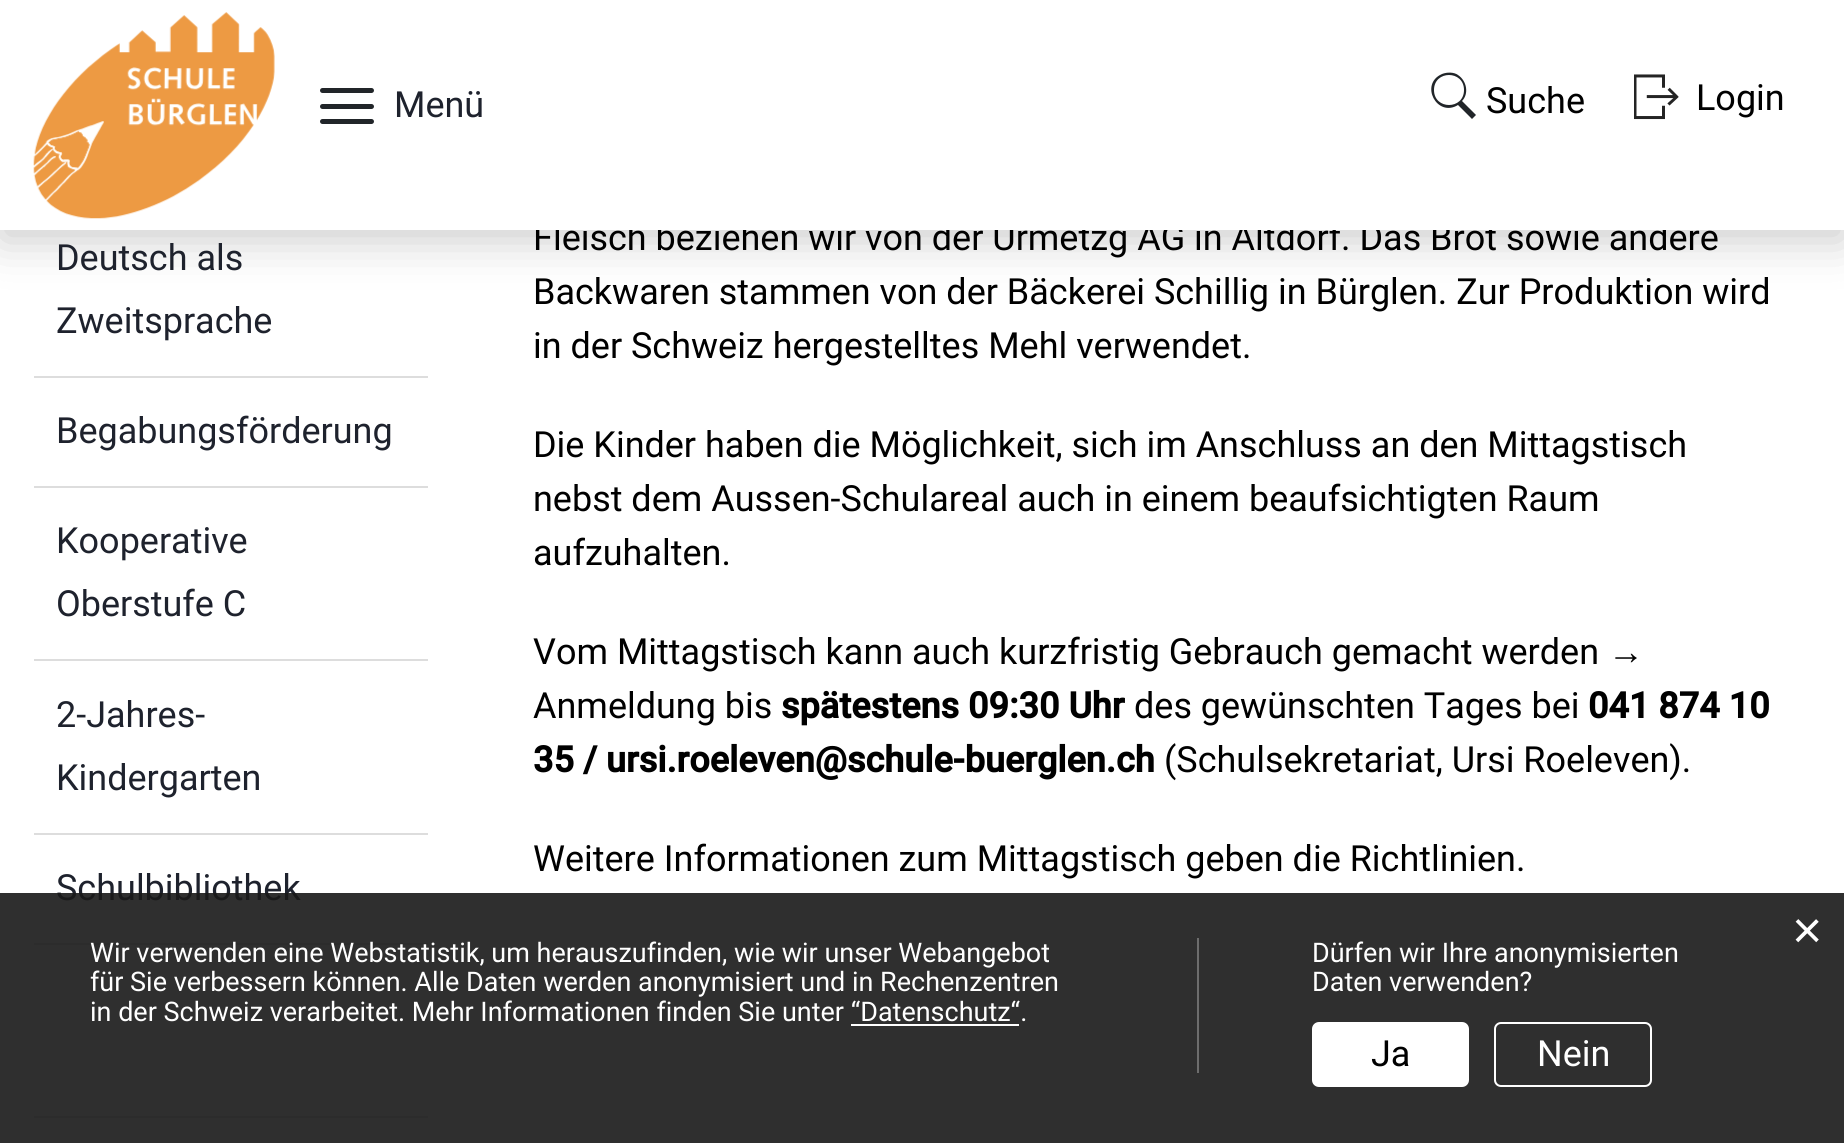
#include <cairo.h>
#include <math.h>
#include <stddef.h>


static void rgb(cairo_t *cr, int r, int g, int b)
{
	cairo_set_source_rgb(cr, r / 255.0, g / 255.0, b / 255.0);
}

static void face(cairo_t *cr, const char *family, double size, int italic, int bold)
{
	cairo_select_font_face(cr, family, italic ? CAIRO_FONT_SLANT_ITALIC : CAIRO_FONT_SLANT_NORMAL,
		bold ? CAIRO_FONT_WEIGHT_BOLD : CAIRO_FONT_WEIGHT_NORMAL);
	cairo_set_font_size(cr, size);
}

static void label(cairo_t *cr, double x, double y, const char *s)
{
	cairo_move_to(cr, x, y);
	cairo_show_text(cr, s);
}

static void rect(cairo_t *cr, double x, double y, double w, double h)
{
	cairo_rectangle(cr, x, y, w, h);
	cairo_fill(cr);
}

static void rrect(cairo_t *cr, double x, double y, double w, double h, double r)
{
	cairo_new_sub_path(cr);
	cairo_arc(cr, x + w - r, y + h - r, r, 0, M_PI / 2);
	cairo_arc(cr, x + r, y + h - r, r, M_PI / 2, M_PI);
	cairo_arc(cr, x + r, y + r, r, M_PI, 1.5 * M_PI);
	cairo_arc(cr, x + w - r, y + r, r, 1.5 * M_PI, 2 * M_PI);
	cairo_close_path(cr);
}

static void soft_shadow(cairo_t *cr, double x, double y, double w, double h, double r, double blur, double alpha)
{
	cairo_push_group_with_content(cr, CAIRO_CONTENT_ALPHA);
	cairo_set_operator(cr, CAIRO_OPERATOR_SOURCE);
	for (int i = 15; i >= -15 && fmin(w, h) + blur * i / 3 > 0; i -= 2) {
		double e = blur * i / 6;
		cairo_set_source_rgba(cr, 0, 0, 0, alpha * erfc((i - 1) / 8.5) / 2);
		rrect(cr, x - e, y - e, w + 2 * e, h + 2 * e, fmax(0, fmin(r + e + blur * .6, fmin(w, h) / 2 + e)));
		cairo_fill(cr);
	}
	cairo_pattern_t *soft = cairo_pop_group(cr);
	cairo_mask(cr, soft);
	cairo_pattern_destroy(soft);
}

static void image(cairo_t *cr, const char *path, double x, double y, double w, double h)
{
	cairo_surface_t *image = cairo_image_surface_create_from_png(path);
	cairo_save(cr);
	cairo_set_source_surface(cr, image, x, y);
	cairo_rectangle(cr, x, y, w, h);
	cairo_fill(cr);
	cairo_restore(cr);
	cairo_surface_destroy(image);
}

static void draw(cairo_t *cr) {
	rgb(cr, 255, 255, 255);
	cairo_paint(cr);
	rgb(cr, 0, 0, 0);
	soft_shadow(cr, 0, 11, 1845, 230, 0, 22.5, 0.2);
	face(cr, "Roboto", 36, 0, 0);
	rgb(cr, 0, 0, 0);
	label(cr, 533, 250, "Fleisch beziehen wir von der Ürmetzg AG in Altdorf. Das Brot sowie andere");
	rgb(cr, 255, 255, 255);
	rect(cr, 0, 0, 1844, 230);
	image(cr, "image0.png", 33, 12, 242, 207);
	rgb(cr, 33, 37, 41);
	rrect(cr, 320, 88, 54, 5, 2.5);
	cairo_fill(cr);
	rrect(cr, 320, 104, 54, 5, 2.5);
	cairo_fill(cr);
	rgb(cr, 30, 34, 45);
	label(cr, 394, 117, "Menü");
	rgb(cr, 33, 37, 41);
	rrect(cr, 320, 119, 54, 5, 2.5);
	cairo_fill(cr);
	cairo_new_path(cr);
	cairo_move_to(cr, 1476, 115);
	cairo_line_to(cr, 1462, 101);
	cairo_curve_to(cr, 1469, 94, 1467, 81, 1458, 75);
	cairo_curve_to(cr, 1454, 72, 1447, 72, 1442, 74);
	cairo_curve_to(cr, 1419, 84, 1437, 118, 1458, 105);
	cairo_line_to(cr, 1472, 119);
	cairo_close_path(cr);
	cairo_move_to(cr, 1434, 90);
	cairo_curve_to(cr, 1434, 70, 1464, 70, 1464, 90);
	cairo_curve_to(cr, 1464, 110, 1434, 110, 1434, 90);
	cairo_close_path(cr);
	cairo_fill(cr);
	rgb(cr, 0, 0, 0);
	label(cr, 1486, 113, "Suche");
	image(cr, "image1.png", 1634, 74, 45, 46);
	label(cr, 1696, 110, "Login");
	rgb(cr, 221, 221, 221);
	rect(cr, 34, 376, 394, 2);
	rgb(cr, 30, 34, 45);
	label(cr, 56, 270, "Deutsch als");
	label(cr, 56, 333, "Zweitsprache");
	rgb(cr, 221, 221, 221);
	rect(cr, 34, 486, 394, 2);
	rgb(cr, 30, 34, 45);
	label(cr, 56, 443, "Begabungsförderung");
	rgb(cr, 221, 221, 221);
	rect(cr, 34, 659, 394, 2);
	rgb(cr, 30, 34, 45);
	label(cr, 56, 553, "Kooperative");
	label(cr, 56, 616, "Oberstufe C");
	rgb(cr, 221, 221, 221);
	rect(cr, 34, 833, 394, 2);
	rgb(cr, 30, 34, 45);
	label(cr, 56, 727, "2-Jahres-");
	label(cr, 56, 790, "Kindergarten");
	rgb(cr, 221, 221, 221);
	rect(cr, 34, 943, 394, 2);
	rgb(cr, 30, 34, 45);
	label(cr, 56, 900, "Schulbibliothek");
	rgb(cr, 221, 221, 221);
	rect(cr, 34, 1116, 394, 2);
	rgb(cr, 0, 0, 0);
	label(cr, 533, 304, "Backwaren stammen von der Bäckerei Schillig in Bürglen. Zur Produktion wird");
	label(cr, 533, 358, "in der Schweiz hergestelltes Mehl verwendet.");
	label(cr, 533, 457, "Die Kinder haben die Möglichkeit, sich im Anschluss an den Mittagstisch");
	label(cr, 533, 511, "nebst dem Aussen-Schulareal auch in einem beaufsichtigten Raum");
	label(cr, 533, 565, "aufzuhalten.");
	label(cr, 533, 664, "Vom Mittagstisch kann auch kurzfristig Gebrauch gemacht werden");
	face(cr, "Liberation Serif", 36, 0, 0);
	label(cr, 1608, 664, "→");
	face(cr, "Roboto", 36, 0, 0);
	label(cr, 533, 718, "Anmeldung bis");
	face(cr, "Roboto", 36, 0, 1);
	label(cr, 781, 718, "spätestens 09:30 Uhr");
	face(cr, "Roboto", 36, 0, 0);
	label(cr, 1134, 718, "des gewünschten Tages bei");
	face(cr, "Roboto", 36, 0, 1);
	label(cr, 1588, 718, "041 874 10");
	label(cr, 533, 772, "35 / ursi.roeleven@schule-buerglen.ch");
	face(cr, "Roboto", 36, 0, 0);
	label(cr, 1164, 772, "(Schulsekretariat, Ursi Roeleven).");
	label(cr, 533, 871, "Weitere Informationen zum Mittagstisch geben die Richtlinien.");
	cairo_set_source_rgba(cr, 0.098, 0.098, 0.098, 0.9);
	rect(cr, 0, 893, 1844, 250);
	face(cr, "Liberation Sans", 52, 0, 0);
	rgb(cr, 255, 255, 255);
	label(cr, 1792, 948, "×");
	rgb(cr, 109, 109, 109);
	rect(cr, 1197, 938, 2, 135);
	face(cr, "Roboto", 27, 0, 0);
	rgb(cr, 255, 255, 255);
	label(cr, 90, 962, "Wir verwenden eine Webstatistik, um herauszufinden, wie wir unser Webangebot");
	label(cr, 90, 991, "für Sie verbessern können. Alle Daten werden anonymisiert und in Rechenzentren");
	label(cr, 90, 1021, "in der Schweiz verarbeitet. Mehr Informationen finden Sie unter “Datenschutz“.");
	rect(cr, 851, 1024, 168, 2);
	label(cr, 1312, 962, "Dürfen wir Ihre anonymisierten");
	label(cr, 1312, 991, "Daten verwenden?");
	rrect(cr, 1313, 1023, 155, 63, 6);
	cairo_fill_preserve(cr);
	cairo_stroke(cr);
	face(cr, "Roboto", 36, 0, 0);
	rgb(cr, 0, 0, 0);
	label(cr, 1371, 1066, "Ja");
	rrect(cr, 1495, 1023, 156, 63, 6);
	rgb(cr, 255, 255, 255);
	cairo_stroke(cr);
	label(cr, 1537, 1066, "Nein");
}

int main(void) {
	cairo_surface_t *surface = cairo_image_surface_create(CAIRO_FORMAT_RGB24, 1844, 1143);
	cairo_t *cr = cairo_create(surface);
	cairo_font_options_t *options = cairo_font_options_create();
	cairo_font_options_set_hint_metrics(options, CAIRO_HINT_METRICS_OFF);
	cairo_font_options_set_hint_style(options, CAIRO_HINT_STYLE_NONE);
	cairo_set_font_options(cr, options);
	cairo_set_miter_limit(cr, 4);
	draw(cr);
	cairo_surface_write_to_png(surface, "render.png");
	cairo_font_options_destroy(options);
	cairo_destroy(cr);
	cairo_surface_destroy(surface);
	return 0;
}
